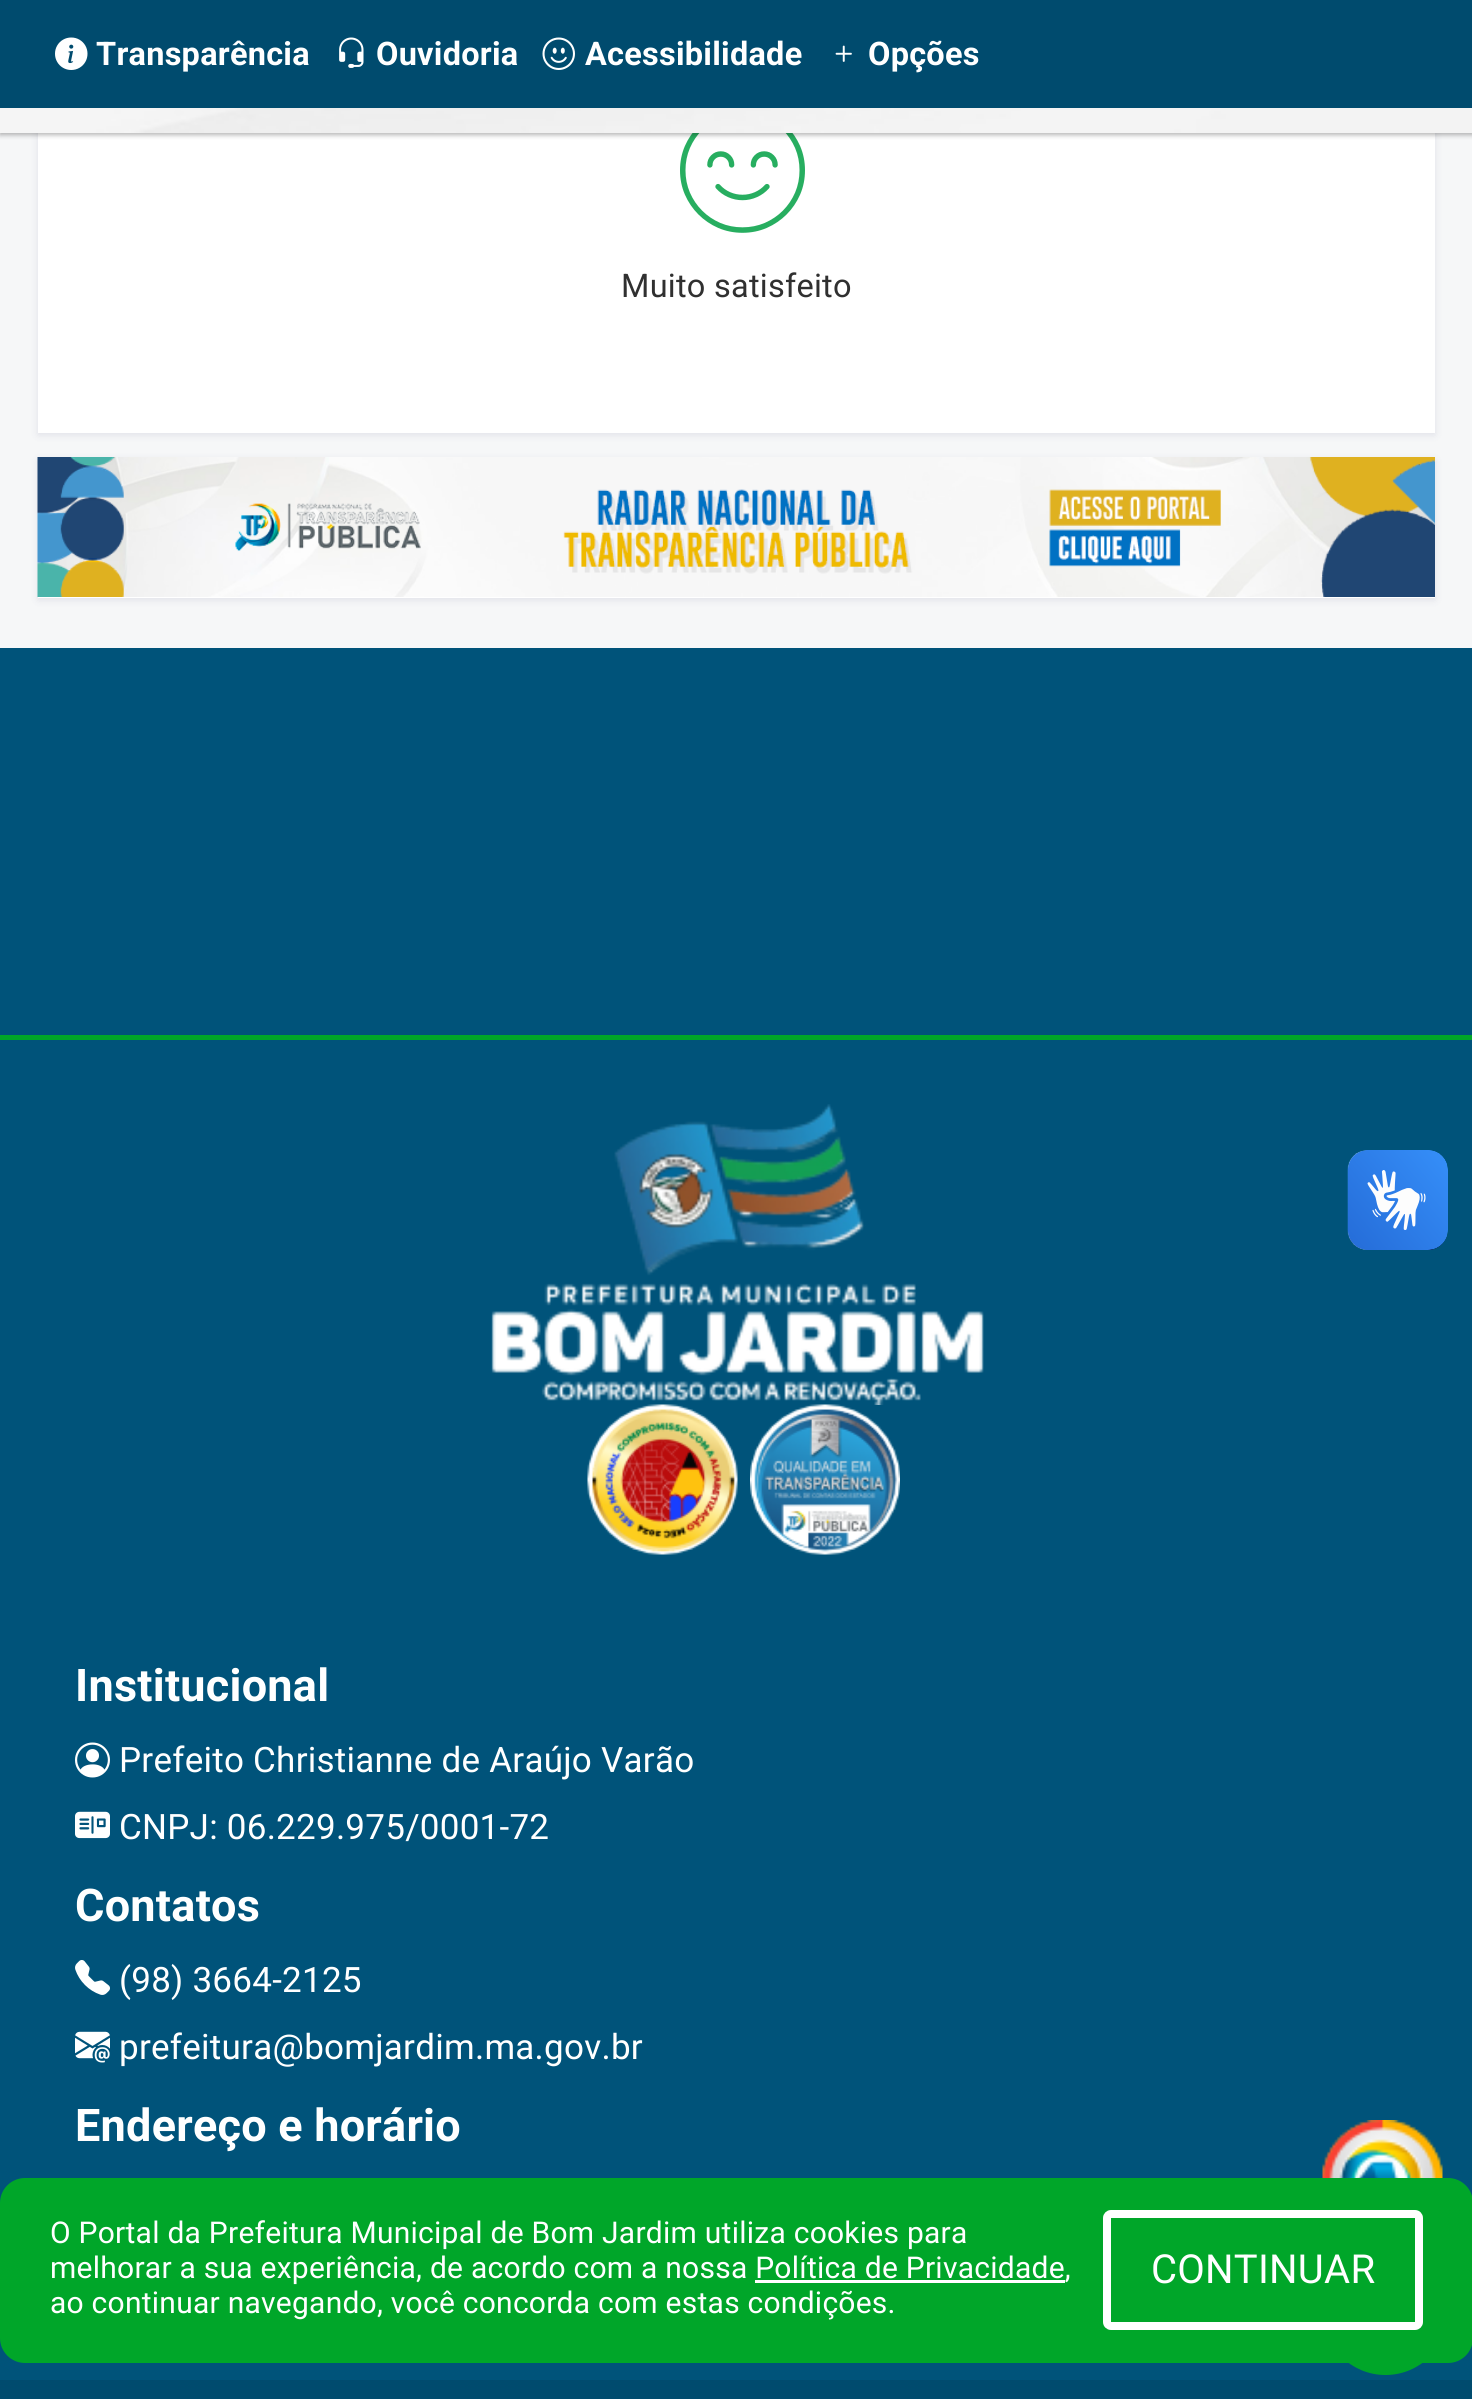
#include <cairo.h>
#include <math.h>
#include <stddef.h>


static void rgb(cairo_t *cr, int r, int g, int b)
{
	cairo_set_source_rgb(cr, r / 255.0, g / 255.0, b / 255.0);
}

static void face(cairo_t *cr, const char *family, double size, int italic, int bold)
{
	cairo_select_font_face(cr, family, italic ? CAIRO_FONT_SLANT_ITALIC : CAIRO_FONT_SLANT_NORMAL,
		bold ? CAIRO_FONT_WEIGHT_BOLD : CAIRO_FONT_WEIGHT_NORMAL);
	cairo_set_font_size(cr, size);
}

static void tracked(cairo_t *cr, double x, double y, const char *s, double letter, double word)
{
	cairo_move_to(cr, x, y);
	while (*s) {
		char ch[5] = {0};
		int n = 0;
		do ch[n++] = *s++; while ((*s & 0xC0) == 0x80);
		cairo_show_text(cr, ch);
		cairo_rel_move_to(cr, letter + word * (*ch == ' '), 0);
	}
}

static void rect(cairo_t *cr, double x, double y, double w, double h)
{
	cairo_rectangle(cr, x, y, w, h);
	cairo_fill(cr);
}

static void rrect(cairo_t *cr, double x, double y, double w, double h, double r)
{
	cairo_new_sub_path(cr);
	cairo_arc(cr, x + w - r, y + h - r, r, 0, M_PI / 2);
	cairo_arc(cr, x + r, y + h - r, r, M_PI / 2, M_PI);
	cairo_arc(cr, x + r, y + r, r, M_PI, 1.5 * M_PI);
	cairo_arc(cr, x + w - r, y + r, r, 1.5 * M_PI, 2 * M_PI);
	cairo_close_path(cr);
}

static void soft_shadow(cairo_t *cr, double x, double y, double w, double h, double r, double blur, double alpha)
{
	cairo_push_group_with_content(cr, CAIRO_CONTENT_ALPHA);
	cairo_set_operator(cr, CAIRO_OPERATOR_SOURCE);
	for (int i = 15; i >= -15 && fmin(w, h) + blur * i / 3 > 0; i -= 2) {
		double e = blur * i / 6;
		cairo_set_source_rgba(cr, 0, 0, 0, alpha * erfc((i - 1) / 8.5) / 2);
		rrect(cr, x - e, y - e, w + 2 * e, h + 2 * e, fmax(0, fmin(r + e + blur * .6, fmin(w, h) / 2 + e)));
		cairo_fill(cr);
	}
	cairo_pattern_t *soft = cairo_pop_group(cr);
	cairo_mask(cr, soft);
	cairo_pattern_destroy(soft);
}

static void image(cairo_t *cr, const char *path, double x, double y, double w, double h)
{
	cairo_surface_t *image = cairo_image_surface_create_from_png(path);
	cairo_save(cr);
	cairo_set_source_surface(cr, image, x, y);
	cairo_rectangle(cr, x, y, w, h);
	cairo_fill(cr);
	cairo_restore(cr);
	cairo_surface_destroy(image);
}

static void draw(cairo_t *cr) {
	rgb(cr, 246, 247, 248);
	cairo_paint(cr);
	rgb(cr, 3, 0, 71);
	soft_shadow(cr, 38, -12, 1397, 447, 0, 4, 0.09);
	rgb(cr, 255, 255, 255);
	rect(cr, 38, 133, 1397, 300);
	image(cr, "image5.png", 680, 133, 125, 100);
	rgb(cr, 0, 0, 0);
	soft_shadow(cr, 0, 3, 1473, 132, 0, 2.5, 0.3);
	image(cr, "image0.png", 0, 108, 1472, 25);
	rgb(cr, 0, 75, 110);
	rect(cr, 0, 0, 1472, 108);
	image(cr, "image1.png", 55, 37, 33, 33);
	face(cr, "Roboto", 32.5, 0, 1);
	rgb(cr, 255, 255, 255);
	tracked(cr, 96, 65, "Transparência", 0.25, 0);
	image(cr, "image2.png", 339, 37, 25, 31);
	tracked(cr, 376, 65, "Ouvidoria", 0.25, 0);
	image(cr, "image3.png", 542, 37, 33, 33);
	tracked(cr, 585, 65, "Acessibilidade", 0.25, 0);
	image(cr, "image4.png", 835, 45, 17, 17);
	tracked(cr, 868, 65, "Opções", 0.25, 0);
	face(cr, "Roboto", 32.5, 0, 0);
	rgb(cr, 48, 48, 48);
	tracked(cr, 621, 297, "Muito satisfeito", 0.25, 0);
	rgb(cr, 3, 0, 71);
	soft_shadow(cr, 38, 460, 1397, 140, 0, 4, 0.09);
	rgb(cr, 255, 255, 255);
	rect(cr, 38, 597, 1397, 1);
	image(cr, "image6.png", 37, 457, 1398, 140);
	rgb(cr, 0, 83, 122);
	rect(cr, 0, 648, 1472, 1732);
	rgb(cr, 0, 166, 41);
	rect(cr, 0, 1035, 1472, 5);
	image(cr, "image7.png", 491, 1104, 493, 301);
	image(cr, "image8.png", 587, 1404, 151, 151);
	image(cr, "image9.png", 750, 1404, 150, 151);
	image(cr, "image10.png", 1347, 1150, 101, 100);
	image(cr, "image11.png", 1348, 1150, 100, 100);
	face(cr, "Roboto", 45, 0, 1);
	rgb(cr, 255, 255, 255);
	tracked(cr, 75, 1701, "Institucional", 0.25, 0);
	image(cr, "image12.png", 75, 1742, 35, 36);
	face(cr, "Roboto", 35, 0, 0);
	tracked(cr, 119, 1772, "Prefeito Christianne de Araújo Varão", 0.25, 0);
	image(cr, "image13.png", 75, 1811, 35, 28);
	tracked(cr, 119, 1839, "CNPJ: 06.229.975/0001-72", 0.25, 0);
	face(cr, "Roboto", 45, 0, 1);
	tracked(cr, 75, 1921, "Contatos", 0.25, 0);
	image(cr, "image14.png", 75, 1960, 35, 35);
	face(cr, "Roboto", 35, 0, 0);
	tracked(cr, 119, 1992, "(98) 3664-2125", 0.25, 0);
	image(cr, "image15.png", 75, 2031, 35, 32);
	tracked(cr, 119, 2059, "prefeitura@bomjardim.ma.gov.br", 0.25, 0);
	face(cr, "Roboto", 45, 0, 1);
	tracked(cr, 75, 2141, "Endereço e horário", 0.25, 0);
	image(cr, "image16.png", 1322, 2120, 121, 58);
	rgb(cr, 0, 166, 41);
	cairo_arc(cr, 1385.5, 2312.5, 62.5, 0, 2 * M_PI);
	cairo_fill(cr);
	rrect(cr, 0, 2178, 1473, 185, 25);
	cairo_fill(cr);
	face(cr, "Roboto", 30, 0, 0);
	rgb(cr, 255, 255, 255);
	tracked(cr, 50, 2243, "O Portal da Prefeitura Municipal de Bom Jardim utiliza cookies para", 0.25, 0);
	tracked(cr, 50, 2278, "melhorar a sua experiência, de acordo com a nossa Política de Privacidade,", 0.25, 0);
	rect(cr, 755, 2280, 310, 3);
	tracked(cr, 50, 2313, "ao continuar navegando, você concorda com estas condições.", 0.25, 0);
	rrect(cr, 1107, 2214, 312, 112, 4);
	cairo_set_line_width(cr, 8);
	cairo_stroke(cr);
	face(cr, "Roboto", 40, 0, 0);
	tracked(cr, 1151, 2283, "CONTINUAR", 0.25, 0);
	rgb(cr, 0, 75, 110);
	rect(cr, 0, 2380, 1472, 19);
}

int main(void) {
	cairo_surface_t *surface = cairo_image_surface_create(CAIRO_FORMAT_RGB24, 1472, 2399);
	cairo_t *cr = cairo_create(surface);
	cairo_font_options_t *options = cairo_font_options_create();
	cairo_font_options_set_hint_metrics(options, CAIRO_HINT_METRICS_OFF);
	cairo_font_options_set_hint_style(options, CAIRO_HINT_STYLE_NONE);
	cairo_set_font_options(cr, options);
	cairo_set_miter_limit(cr, 4);
	draw(cr);
	cairo_surface_write_to_png(surface, "render.png");
	cairo_font_options_destroy(options);
	cairo_destroy(cr);
	cairo_surface_destroy(surface);
	return 0;
}
